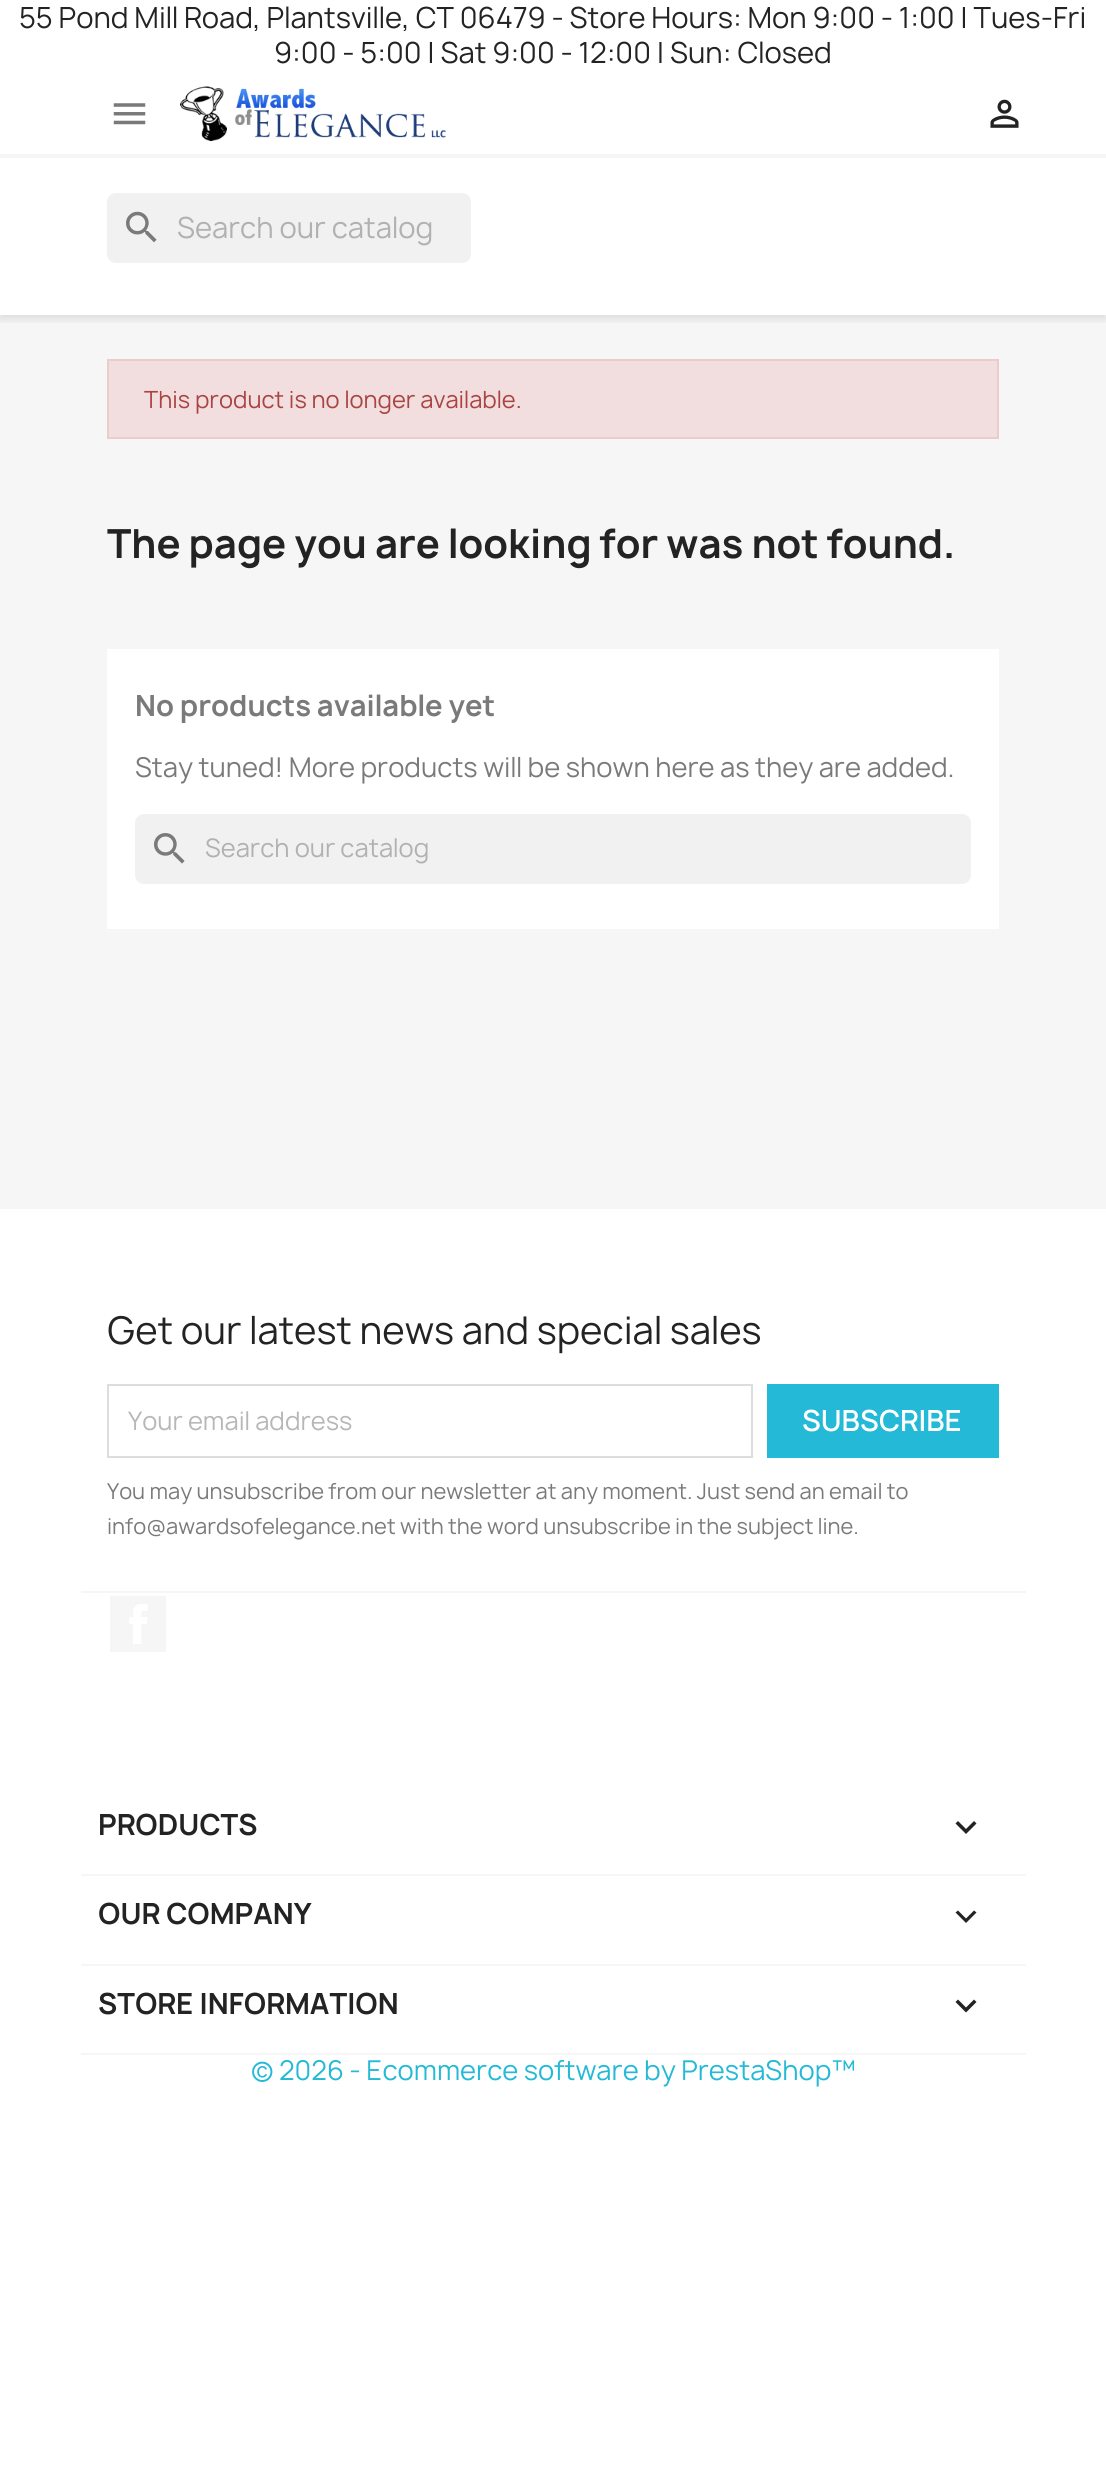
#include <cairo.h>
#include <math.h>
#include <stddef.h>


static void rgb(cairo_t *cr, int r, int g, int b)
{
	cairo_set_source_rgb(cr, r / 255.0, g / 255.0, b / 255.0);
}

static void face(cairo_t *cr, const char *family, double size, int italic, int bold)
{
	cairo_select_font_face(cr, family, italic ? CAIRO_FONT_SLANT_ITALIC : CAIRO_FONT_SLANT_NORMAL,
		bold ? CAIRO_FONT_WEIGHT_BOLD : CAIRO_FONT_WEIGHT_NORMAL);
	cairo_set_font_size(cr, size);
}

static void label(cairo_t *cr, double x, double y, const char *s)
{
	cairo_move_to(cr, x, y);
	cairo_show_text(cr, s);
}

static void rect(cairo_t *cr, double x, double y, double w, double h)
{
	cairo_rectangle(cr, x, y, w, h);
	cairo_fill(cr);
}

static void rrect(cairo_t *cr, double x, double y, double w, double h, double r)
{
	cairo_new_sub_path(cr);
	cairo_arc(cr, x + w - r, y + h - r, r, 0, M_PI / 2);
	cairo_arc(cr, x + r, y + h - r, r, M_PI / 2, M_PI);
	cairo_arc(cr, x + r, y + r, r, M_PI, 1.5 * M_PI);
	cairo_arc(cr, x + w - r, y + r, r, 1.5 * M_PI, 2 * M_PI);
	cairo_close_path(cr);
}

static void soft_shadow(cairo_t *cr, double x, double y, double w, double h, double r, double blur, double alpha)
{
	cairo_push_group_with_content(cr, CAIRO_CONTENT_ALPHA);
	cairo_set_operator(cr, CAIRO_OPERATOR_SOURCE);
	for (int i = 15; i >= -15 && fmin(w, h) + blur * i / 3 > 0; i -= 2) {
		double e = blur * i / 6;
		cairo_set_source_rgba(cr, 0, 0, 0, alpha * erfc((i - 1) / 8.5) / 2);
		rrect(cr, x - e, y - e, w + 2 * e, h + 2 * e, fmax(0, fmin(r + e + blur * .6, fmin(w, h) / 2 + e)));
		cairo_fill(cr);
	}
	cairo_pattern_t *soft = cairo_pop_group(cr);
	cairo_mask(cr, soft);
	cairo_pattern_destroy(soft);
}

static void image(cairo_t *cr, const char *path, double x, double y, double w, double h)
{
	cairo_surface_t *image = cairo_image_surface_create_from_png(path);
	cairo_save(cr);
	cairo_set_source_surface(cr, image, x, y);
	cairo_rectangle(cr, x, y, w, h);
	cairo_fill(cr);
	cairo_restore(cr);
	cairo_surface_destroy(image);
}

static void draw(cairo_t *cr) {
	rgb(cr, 255, 255, 255);
	cairo_paint(cr);
	face(cr, "Manrope", 28, 0, 0);
	rgb(cr, 35, 35, 35);
	label(cr, 19, 28, "55 Pond Mill Road, Plantsville, CT 06479 - Store Hours: Mon 9:00 - 1:00 | Tues-Fri");
	label(cr, 274, 63, "9:00 - 5:00 | Sat 9:00 - 12:00 | Sun: Closed");
	rgb(cr, 246, 246, 246);
	rect(cr, 0, 315, 1106, 894);
	cairo_save(cr);
	cairo_rectangle(cr, 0, 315, 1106, 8);
	cairo_clip(cr);
	rgb(cr, 0, 0, 0);
	soft_shadow(cr, 0, 74, 1106, 245, 0, 4.5, 0.11);
	cairo_restore(cr);
	rect(cr, 0, 154, 1106, 4);
	image(cr, "image0.png", 113, 103, 33, 22);
	image(cr, "image1.png", 180, 86, 266, 55);
	image(cr, "image2.png", 990, 99, 29, 29);
	rgb(cr, 241, 241, 241);
	rrect(cr, 107, 193, 364, 70, 9);
	cairo_fill(cr);
	image(cr, "image3.png", 126, 211, 31, 32);
	rgb(cr, 177, 177, 177);
	label(cr, 177, 238, "Search our catalog");
	rgb(cr, 242, 222, 222);
	cairo_rectangle(cr, 108, 360, 890, 78);
	cairo_fill_preserve(cr);
	rgb(cr, 235, 204, 204);
	cairo_stroke(cr);
	face(cr, "Manrope", 22.75, 0, 0);
	rgb(cr, 169, 68, 66);
	label(cr, 144, 408, "This product is no longer available.");
	face(cr, "Manrope", 38.5, 0, 1);
	rgb(cr, 35, 35, 35);
	label(cr, 107, 558, "The page you are looking for was not found.");
	rgb(cr, 255, 255, 255);
	rect(cr, 107, 649, 892, 280);
	face(cr, "Manrope", 28, 0, 1);
	rgb(cr, 122, 122, 122);
	label(cr, 135, 716, "No products available yet");
	face(cr, "Manrope", 26.25, 0, 0);
	label(cr, 135, 777, "Stay tuned! More products will be shown here as they are added.");
	rgb(cr, 241, 241, 241);
	rrect(cr, 135, 814, 836, 70, 9);
	cairo_fill(cr);
	image(cr, "image4.png", 154, 833, 31, 31);
	face(cr, "Manrope", 24.5, 0, 0);
	rgb(cr, 177, 177, 177);
	label(cr, 205, 857, "Search our catalog");
	rgb(cr, 246, 246, 246);
	rect(cr, 81, 1591, 945, 2);
	face(cr, "Manrope", 36.75, 0, 0);
	rgb(cr, 35, 35, 35);
	label(cr, 107, 1344, "Get our latest news and special sales");
	cairo_rectangle(cr, 108, 1385, 644, 72);
	rgb(cr, 221, 221, 221);
	cairo_stroke(cr);
	face(cr, "Manrope", 24.5, 0, 0);
	rgb(cr, 183, 183, 183);
	label(cr, 128, 1430, "Your email address");
	rgb(cr, 36, 185, 215);
	rect(cr, 767, 1384, 232, 74);
	face(cr, "Manrope SemiBold", 28, 0, 0);
	rgb(cr, 255, 255, 255);
	label(cr, 802, 1431, "SUBSCRIBE");
	face(cr, "Manrope", 21, 0, 0);
	rgb(cr, 122, 122, 122);
	label(cr, 107, 1499, "You may unsubscribe from our newsletter at any moment. Just send an email to");
	label(cr, 107, 1534, "info@awardsofelegance.net with the word unsubscribe in the subject line.");
	rgb(cr, 246, 246, 246);
	rect(cr, 110, 1596, 56, 56);
	image(cr, "image5.png", 129, 1604, 19, 40);
	rect(cr, 81, 1874, 945, 2);
	face(cr, "Manrope", 28, 0, 1);
	rgb(cr, 35, 35, 35);
	label(cr, 98, 1835, "PRODUCTS");
	cairo_new_path(cr);
	cairo_move_to(cr, 958, 1821);
	cairo_line_to(cr, 966, 1829);
	cairo_line_to(cr, 974, 1821);
	cairo_line_to(cr, 976.5, 1823.5);
	cairo_line_to(cr, 966, 1834);
	cairo_line_to(cr, 955.5, 1823.5);
	cairo_close_path(cr);
	cairo_fill(cr);
	rgb(cr, 246, 246, 246);
	rect(cr, 81, 1964, 945, 2);
	rgb(cr, 35, 35, 35);
	label(cr, 98, 1924, "OUR COMPANY");
	cairo_new_path(cr);
	cairo_move_to(cr, 958, 1910.5);
	cairo_line_to(cr, 966, 1918.5);
	cairo_line_to(cr, 974, 1910.5);
	cairo_line_to(cr, 976.5, 1912.5);
	cairo_line_to(cr, 966, 1923);
	cairo_line_to(cr, 955.5, 1912.5);
	cairo_close_path(cr);
	cairo_fill(cr);
	rgb(cr, 246, 246, 246);
	rect(cr, 81, 2053, 945, 2);
	rgb(cr, 35, 35, 35);
	label(cr, 98, 2014, "STORE INFORMATION");
	cairo_new_path(cr);
	cairo_move_to(cr, 958, 1999.5);
	cairo_line_to(cr, 966, 2007.5);
	cairo_line_to(cr, 974, 1999.5);
	cairo_line_to(cr, 976.5, 2002);
	cairo_line_to(cr, 966, 2012.5);
	cairo_line_to(cr, 955.5, 2002);
	cairo_close_path(cr);
	cairo_fill(cr);
	face(cr, "Manrope", 26.25, 0, 0);
	rgb(cr, 36, 185, 215);
	label(cr, 251, 2080, "© 2026 - Ecommerce software by PrestaShop™");
}

int main(void) {
	cairo_surface_t *surface = cairo_image_surface_create(CAIRO_FORMAT_RGB24, 1106, 2469);
	cairo_t *cr = cairo_create(surface);
	cairo_font_options_t *options = cairo_font_options_create();
	cairo_font_options_set_hint_metrics(options, CAIRO_HINT_METRICS_OFF);
	cairo_font_options_set_hint_style(options, CAIRO_HINT_STYLE_NONE);
	cairo_set_font_options(cr, options);
	cairo_set_miter_limit(cr, 4);
	draw(cr);
	cairo_surface_write_to_png(surface, "render.png");
	cairo_font_options_destroy(options);
	cairo_destroy(cr);
	cairo_surface_destroy(surface);
	return 0;
}
